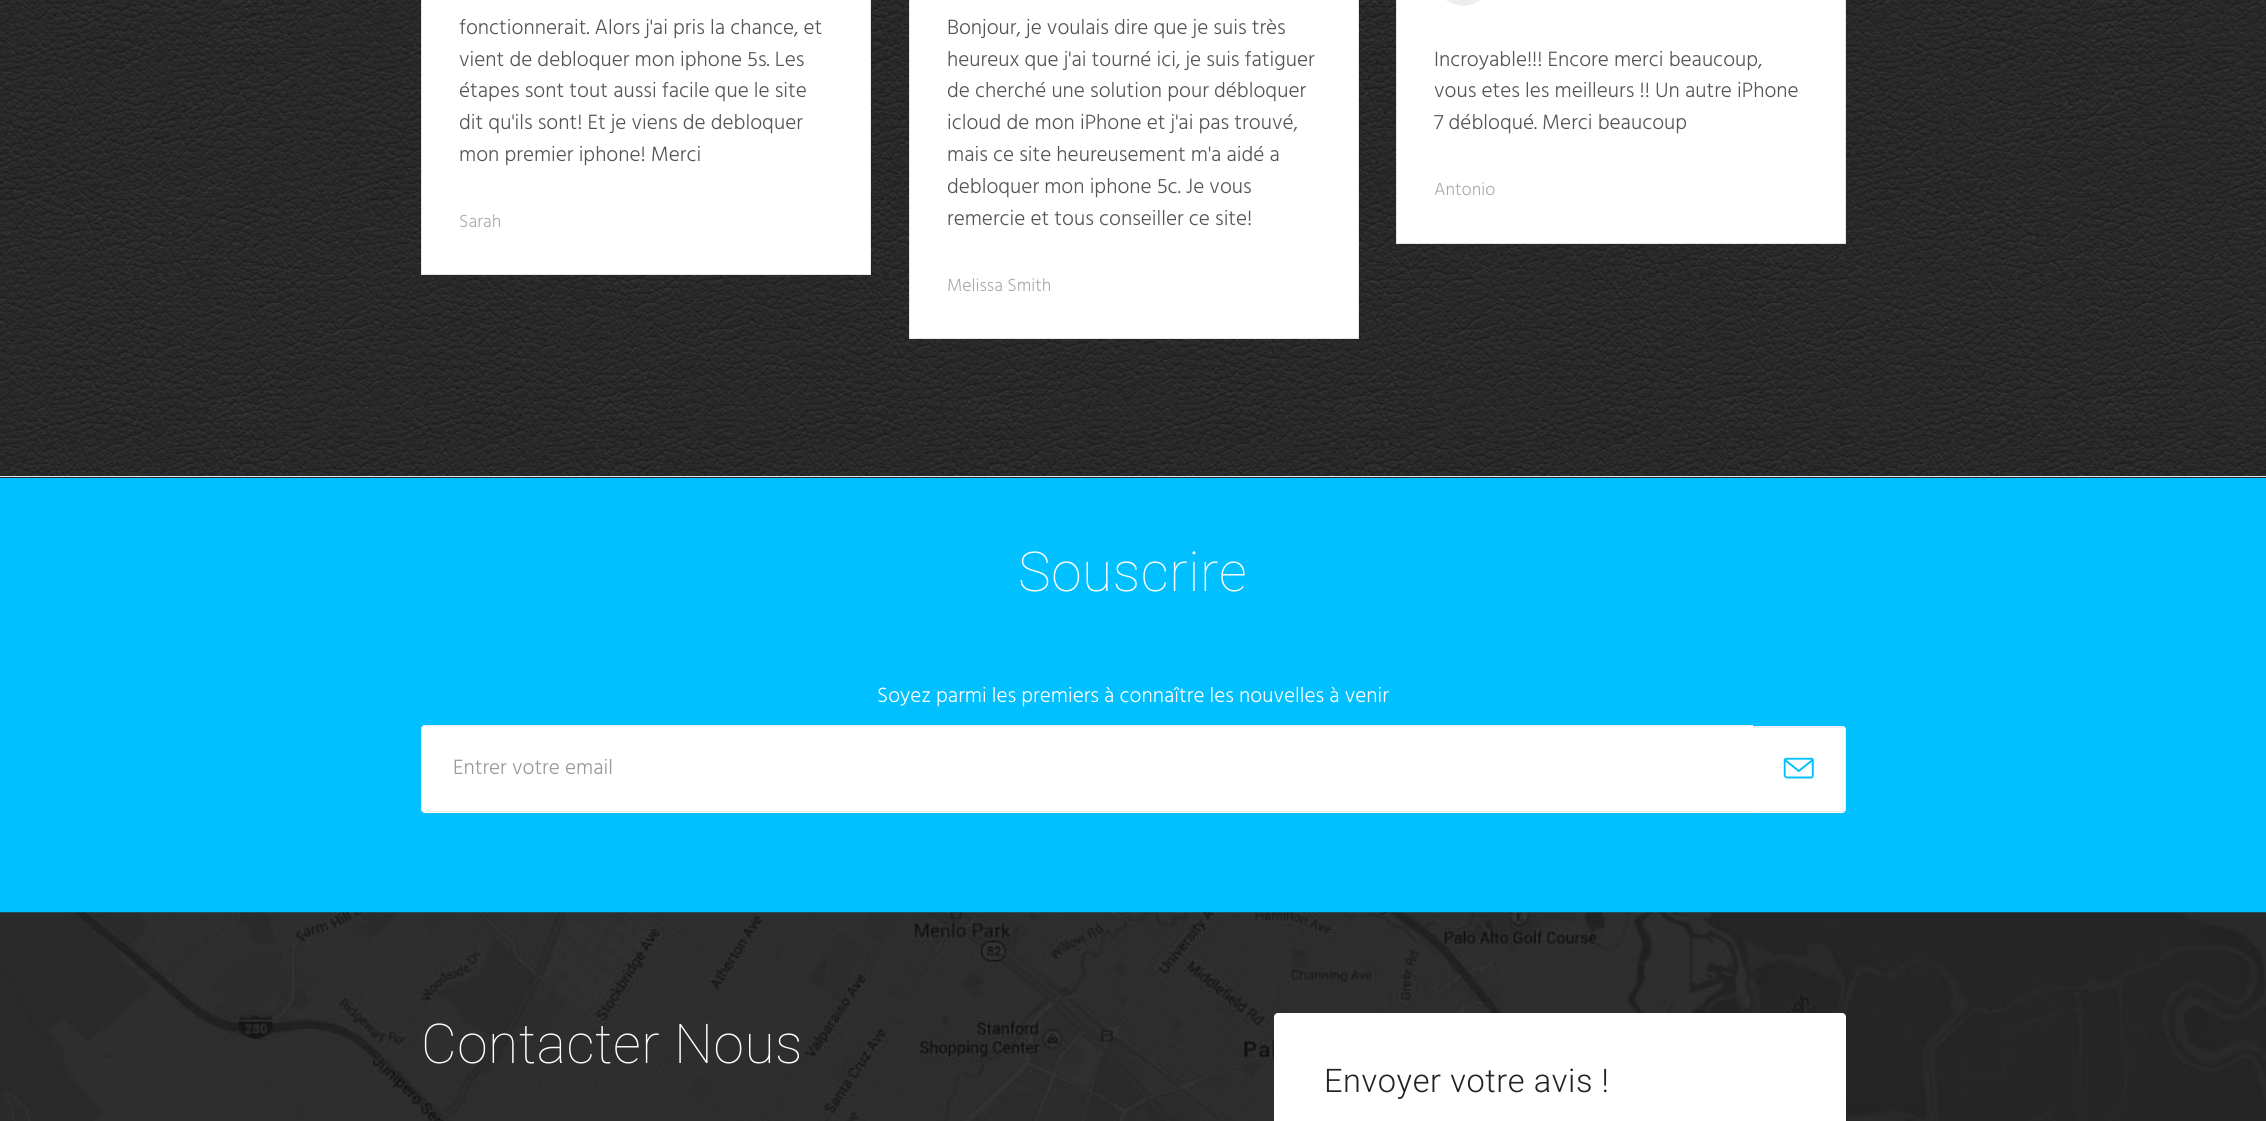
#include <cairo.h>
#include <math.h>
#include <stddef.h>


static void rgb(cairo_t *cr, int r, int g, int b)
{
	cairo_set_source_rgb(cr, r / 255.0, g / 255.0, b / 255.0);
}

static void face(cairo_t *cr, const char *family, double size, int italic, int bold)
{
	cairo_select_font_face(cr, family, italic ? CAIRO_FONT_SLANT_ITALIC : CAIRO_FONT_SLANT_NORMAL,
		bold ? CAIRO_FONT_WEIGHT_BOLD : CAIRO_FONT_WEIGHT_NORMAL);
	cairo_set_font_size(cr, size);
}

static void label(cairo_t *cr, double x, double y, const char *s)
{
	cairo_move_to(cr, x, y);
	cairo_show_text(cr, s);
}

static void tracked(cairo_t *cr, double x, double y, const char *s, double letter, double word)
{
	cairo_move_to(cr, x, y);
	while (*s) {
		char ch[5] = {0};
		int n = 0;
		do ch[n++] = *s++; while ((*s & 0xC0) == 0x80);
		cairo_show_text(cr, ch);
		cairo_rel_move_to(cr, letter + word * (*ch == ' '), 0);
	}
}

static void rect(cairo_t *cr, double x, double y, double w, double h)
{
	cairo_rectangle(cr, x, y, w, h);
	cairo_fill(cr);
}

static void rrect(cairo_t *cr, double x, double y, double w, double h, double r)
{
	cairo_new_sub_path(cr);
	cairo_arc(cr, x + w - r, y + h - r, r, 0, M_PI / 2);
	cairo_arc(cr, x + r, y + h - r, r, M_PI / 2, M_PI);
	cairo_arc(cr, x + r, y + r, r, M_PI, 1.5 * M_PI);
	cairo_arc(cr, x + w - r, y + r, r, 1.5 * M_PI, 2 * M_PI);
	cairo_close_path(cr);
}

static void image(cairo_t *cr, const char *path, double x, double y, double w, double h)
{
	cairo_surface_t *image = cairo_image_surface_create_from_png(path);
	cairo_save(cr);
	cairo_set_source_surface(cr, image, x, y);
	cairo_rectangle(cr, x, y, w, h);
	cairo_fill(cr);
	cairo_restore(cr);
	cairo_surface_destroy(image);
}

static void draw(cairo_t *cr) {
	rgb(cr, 37, 40, 48);
	cairo_paint(cr);
	image(cr, "image0.png", 0, 0, 2266, 478);
	rgb(cr, 232, 232, 232);
	rect(cr, 0, 476, 2266, 1);
	rgb(cr, 255, 255, 255);
	cairo_rectangle(cr, 421.5, -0.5, 449, 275);
	cairo_fill_preserve(cr);
	rgb(cr, 230, 230, 230);
	cairo_set_line_width(cr, 1);
	cairo_stroke(cr);
	face(cr, "Hind Light", 21.25, 0, 0);
	rgb(cr, 85, 85, 85);
	label(cr, 459, 34, "fonctionnerait. Alors j'ai pris la chance, et");
	label(cr, 459, 66, "vient de debloquer mon iphone 5s. Les");
	label(cr, 459, 97, "étapes sont tout aussi facile que le site");
	label(cr, 459, 129, "dit qu'ils sont! Et je viens de debloquer");
	label(cr, 459, 161, "mon premier iphone! Merci");
	face(cr, "Hind Light", 18, 0, 0);
	rgb(cr, 170, 170, 170);
	label(cr, 459, 227, "Sarah");
	rgb(cr, 255, 255, 255);
	cairo_rectangle(cr, 909.5, -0.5, 449, 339);
	cairo_fill_preserve(cr);
	rgb(cr, 230, 230, 230);
	cairo_stroke(cr);
	face(cr, "Hind Light", 21.25, 0, 0);
	rgb(cr, 85, 85, 85);
	label(cr, 947, 34, "Bonjour, je voulais dire que je suis très");
	label(cr, 947, 66, "heureux que j'ai tourné ici, je suis fatiguer");
	label(cr, 947, 97, "de cherché une solution pour débloquer");
	label(cr, 947, 129, "icloud de mon iPhone et j'ai pas trouvé,");
	label(cr, 947, 161, "mais ce site heureusement m'a aidé a");
	label(cr, 947, 193, "debloquer mon iphone 5c. Je vous");
	label(cr, 947, 225, "remercie et tous conseiller ce site!");
	face(cr, "Hind Light", 18, 0, 0);
	rgb(cr, 170, 170, 170);
	label(cr, 947, 291, "Melissa Smith");
	rgb(cr, 255, 255, 255);
	cairo_rectangle(cr, 1396.5, -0.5, 449, 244);
	cairo_fill_preserve(cr);
	rgb(cr, 230, 230, 230);
	cairo_stroke(cr);
	image(cr, "image1.png", 1446, 0, 34, 6);
	face(cr, "Hind Light", 21.25, 0, 0);
	rgb(cr, 85, 85, 85);
	label(cr, 1434, 66, "Incroyable!!! Encore merci beaucoup,");
	label(cr, 1434, 97, "vous etes les meilleurs !! Un autre iPhone");
	label(cr, 1434, 129, "7 débloqué. Merci beaucoup");
	face(cr, "Hind Light", 18, 0, 0);
	rgb(cr, 170, 170, 170);
	label(cr, 1434, 195, "Antonio");
	rgb(cr, 0, 192, 255);
	rect(cr, 0, 478, 2266, 435);
	face(cr, "Roboto Thin", 55, 0, 0);
	rgb(cr, 255, 255, 255);
	tracked(cr, 1018, 591, "Souscrire", 0.6, 0);
	face(cr, "Hind Light", 21.25, 0, 0);
	label(cr, 877, 702, "Soyez parmi les premiers à connaître les nouvelles à venir");
	cairo_new_path(cr);
	cairo_move_to(cr, 1753, 726);
	cairo_line_to(cr, 1842, 726);
	cairo_curve_to(cr, 1844, 726, 1846, 728, 1846, 730);
	cairo_line_to(cr, 1846, 809);
	cairo_curve_to(cr, 1846, 811, 1844, 813, 1842, 813);
	cairo_line_to(cr, 1753, 813);
	cairo_close_path(cr);
	cairo_fill(cr);
	rgb(cr, 238, 238, 238);
	cairo_set_fill_rule(cr, CAIRO_FILL_RULE_EVEN_ODD);
	cairo_new_path(cr);
	cairo_move_to(cr, 1752, 726);
	cairo_line_to(cr, 1842, 726);
	cairo_curve_to(cr, 1845, 726, 1846, 728, 1846, 730);
	cairo_line_to(cr, 1846, 809);
	cairo_curve_to(cr, 1846, 811, 1845, 812, 1842, 812);
	cairo_line_to(cr, 1752, 812);
	cairo_close_path(cr);
	cairo_move_to(cr, 1752, 728);
	cairo_line_to(cr, 1842, 728);
	cairo_curve_to(cr, 1844, 728, 1845, 729, 1845, 730);
	cairo_line_to(cr, 1845, 809);
	cairo_curve_to(cr, 1845, 810, 1844, 811, 1842, 811);
	cairo_line_to(cr, 1752, 811);
	cairo_close_path(cr);
	cairo_fill(cr);
	rgb(cr, 255, 255, 255);
	cairo_new_path(cr);
	cairo_move_to(cr, 425, 725);
	cairo_line_to(cr, 1753, 725);
	cairo_line_to(cr, 1753, 813);
	cairo_line_to(cr, 425, 813);
	cairo_curve_to(cr, 423, 813, 421, 811, 421, 809);
	cairo_line_to(cr, 421, 729);
	cairo_curve_to(cr, 421, 727, 423, 725, 425, 725);
	cairo_close_path(cr);
	cairo_fill(cr);
	rgb(cr, 238, 238, 238);
	cairo_new_path(cr);
	cairo_move_to(cr, 425, 725);
	cairo_line_to(cr, 1752, 725);
	cairo_line_to(cr, 1752, 812);
	cairo_line_to(cr, 425, 812);
	cairo_curve_to(cr, 423, 812, 421, 811, 421, 809);
	cairo_line_to(cr, 421, 729);
	cairo_curve_to(cr, 421, 727, 423, 725, 425, 725);
	cairo_close_path(cr);
	cairo_move_to(cr, 425, 726);
	cairo_line_to(cr, 1752, 726);
	cairo_line_to(cr, 1752, 811);
	cairo_line_to(cr, 425, 811);
	cairo_curve_to(cr, 424, 811, 422, 810, 422, 809);
	cairo_line_to(cr, 422, 729);
	cairo_curve_to(cr, 422, 727, 424, 726, 425, 726);
	cairo_close_path(cr);
	cairo_fill(cr);
	rgb(cr, 153, 153, 153);
	label(cr, 453, 774, "Entrer votre email");
	image(cr, "image2.png", 1783, 757, 31, 22);
	image(cr, "image3.png", 0, 912, 2266, 209);
	face(cr, "Roboto Thin", 55, 0, 0);
	rgb(cr, 255, 255, 255);
	tracked(cr, 421, 1063, "Contacter Nous", 0.6, 0);
	rrect(cr, 1274, 1013, 572, 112, 4);
	cairo_fill(cr);
	face(cr, "Roboto Light", 32.5, 0, 0);
	rgb(cr, 34, 34, 34);
	tracked(cr, 1324, 1092, "Envoyer votre avis !", 0.6, 0);
}

int main(void) {
	cairo_surface_t *surface = cairo_image_surface_create(CAIRO_FORMAT_RGB24, 2266, 1121);
	cairo_t *cr = cairo_create(surface);
	cairo_font_options_t *options = cairo_font_options_create();
	cairo_font_options_set_hint_metrics(options, CAIRO_HINT_METRICS_OFF);
	cairo_font_options_set_hint_style(options, CAIRO_HINT_STYLE_NONE);
	cairo_set_font_options(cr, options);
	cairo_set_miter_limit(cr, 4);
	draw(cr);
	cairo_surface_write_to_png(surface, "render.png");
	cairo_font_options_destroy(options);
	cairo_destroy(cr);
	cairo_surface_destroy(surface);
	return 0;
}
